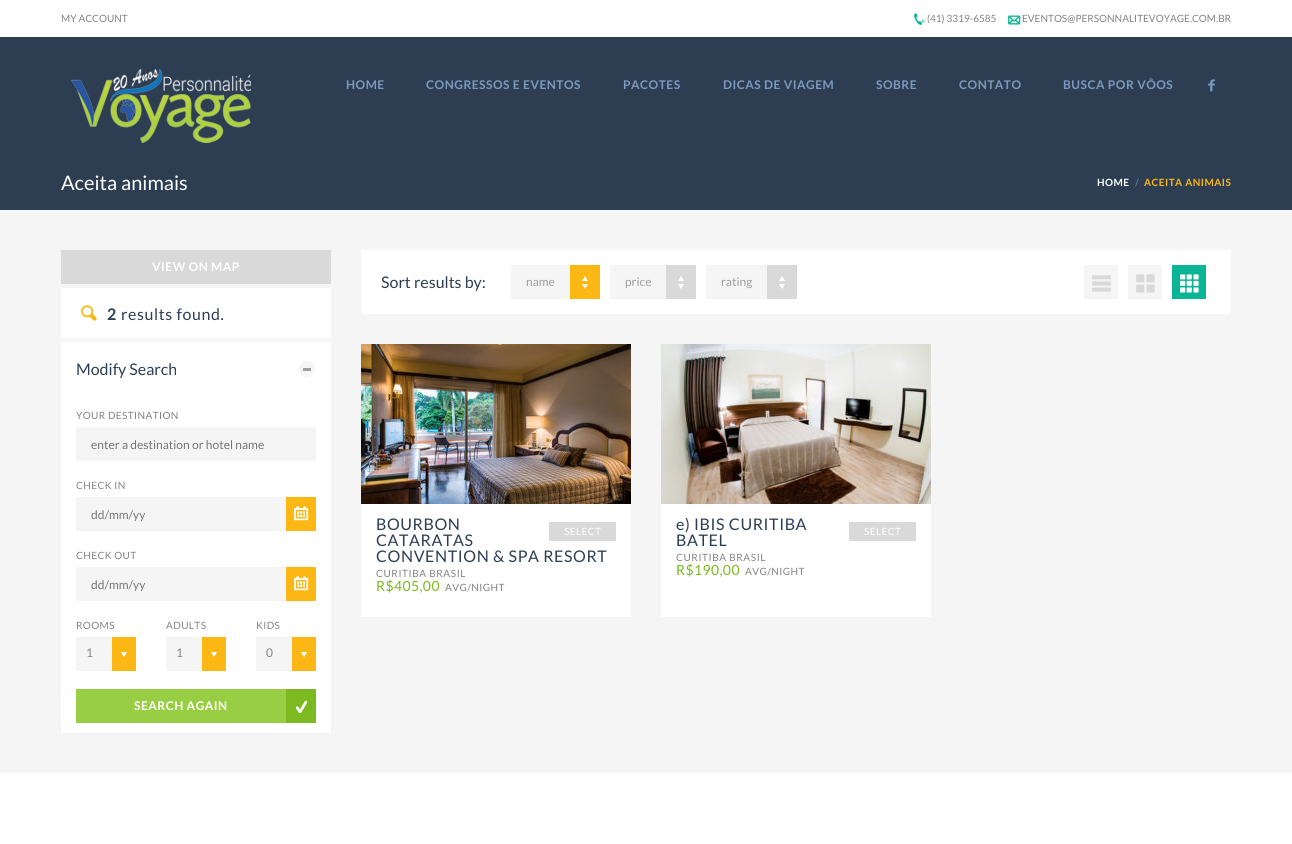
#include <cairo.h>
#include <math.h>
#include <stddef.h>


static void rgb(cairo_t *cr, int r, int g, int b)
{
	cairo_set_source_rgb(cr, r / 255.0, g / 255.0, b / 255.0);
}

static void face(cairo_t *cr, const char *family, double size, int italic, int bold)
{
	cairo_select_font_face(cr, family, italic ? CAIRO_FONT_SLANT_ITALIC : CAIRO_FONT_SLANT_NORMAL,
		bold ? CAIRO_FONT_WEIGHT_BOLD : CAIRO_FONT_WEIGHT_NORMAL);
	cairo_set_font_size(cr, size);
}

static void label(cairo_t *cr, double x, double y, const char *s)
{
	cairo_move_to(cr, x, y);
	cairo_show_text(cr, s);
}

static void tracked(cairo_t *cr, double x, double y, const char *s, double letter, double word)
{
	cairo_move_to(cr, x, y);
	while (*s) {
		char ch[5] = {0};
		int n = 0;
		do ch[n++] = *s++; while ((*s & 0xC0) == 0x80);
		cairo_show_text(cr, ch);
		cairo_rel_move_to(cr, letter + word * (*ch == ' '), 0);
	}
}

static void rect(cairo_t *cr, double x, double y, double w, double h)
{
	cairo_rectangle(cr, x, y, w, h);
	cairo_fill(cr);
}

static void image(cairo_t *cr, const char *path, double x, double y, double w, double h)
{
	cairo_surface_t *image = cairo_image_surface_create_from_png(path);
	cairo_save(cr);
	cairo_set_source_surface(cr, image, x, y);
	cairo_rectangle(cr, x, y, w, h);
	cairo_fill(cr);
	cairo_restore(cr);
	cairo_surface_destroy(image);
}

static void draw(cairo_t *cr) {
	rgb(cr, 255, 255, 255);
	cairo_paint(cr);
	face(cr, "Lato", 10, 0, 0);
	rgb(cr, 131, 131, 131);
	label(cr, 61, 22, "MY ACCOUNT");
	image(cr, "image0.png", 914, 13, 11, 12);
	label(cr, 927, 22, "(41) 3319-6585");
	image(cr, "image1.png", 1008, 15, 13, 10);
	label(cr, 1022, 22, "EVENTOS@PERSONNALITEVOYAGE.COM.BR");
	rgb(cr, 45, 62, 82);
	rect(cr, 0, 37, 1292, 173);
	image(cr, "image2.png", 71, 69, 180, 74);
	face(cr, "Lato", 12, 0, 1);
	rgb(cr, 124, 154, 189);
	tracked(cr, 346, 89, "HOME", 0.5, 0);
	tracked(cr, 426, 89, "CONGRESSOS E EVENTOS", 0.5, 0);
	tracked(cr, 623, 89, "PACOTES", 0.5, 0);
	tracked(cr, 723, 89, "DICAS DE VIAGEM", 0.5, 0);
	tracked(cr, 876, 89, "SOBRE", 0.5, 0);
	tracked(cr, 959, 89, "CONTATO", 0.5, 0);
	tracked(cr, 1063, 89, "BUSCA POR VÔOS", 0.5, 0);
	image(cr, "image3.png", 1208, 79, 7, 13);
	face(cr, "Lato", 20, 0, 0);
	rgb(cr, 255, 255, 255);
	label(cr, 61, 190, "Aceita animais");
	face(cr, "Lato", 10, 0, 1);
	tracked(cr, 1097, 186, "HOME", 0.5, 0);
	rgb(cr, 90, 124, 163);
	tracked(cr, 1135, 186, "/", 0.5, 0);
	rgb(cr, 253, 183, 20);
	tracked(cr, 1144, 186, "ACEITA ANIMAIS", 0.5, 0);
	rgb(cr, 245, 245, 245);
	rect(cr, 0, 210, 1292, 563);
	rgb(cr, 217, 217, 217);
	rect(cr, 61, 250, 270, 34);
	face(cr, "Lato", 12, 0, 1);
	rgb(cr, 255, 255, 255);
	tracked(cr, 152, 271, "VIEW ON MAP", 0.5, 0);
	rect(cr, 61, 288, 270, 50);
	image(cr, "image4.png", 81, 305, 16, 16);
	face(cr, "Lato", 16, 0, 1);
	rgb(cr, 45, 62, 82);
	tracked(cr, 107, 320, "2", 0.6, 0);
	face(cr, "Lato", 16, 0, 0);
	tracked(cr, 121, 320, "results found.", 0.6, 0);
	rgb(cr, 255, 255, 255);
	rect(cr, 61, 342, 270, 391);
	rgb(cr, 45, 62, 82);
	label(cr, 76, 375, "Modify Search");
	rgb(cr, 245, 245, 245);
	cairo_new_path(cr);
	cairo_arc(cr, 307, 369, 8, 0, 2 * M_PI);
	cairo_fill(cr);
	rgb(cr, 158, 158, 158);
	rect(cr, 303, 368, 8, 3);
	face(cr, "Lato", 10, 0, 0);
	rgb(cr, 131, 131, 131);
	tracked(cr, 76, 419, "YOUR DESTINATION", 0.4, 0);
	rgb(cr, 245, 245, 245);
	rect(cr, 76, 427, 240, 34);
	face(cr, "Lato", 12, 0, 0);
	rgb(cr, 117, 117, 117);
	label(cr, 91, 449, "enter a destination or hotel name");
	face(cr, "Lato", 10, 0, 0);
	rgb(cr, 131, 131, 131);
	tracked(cr, 76, 489, "CHECK IN", 0.4, 0);
	rgb(cr, 245, 245, 245);
	rect(cr, 76, 497, 210, 34);
	face(cr, "Lato", 12, 0, 0);
	rgb(cr, 117, 117, 117);
	label(cr, 91, 519, "dd/mm/yy");
	rgb(cr, 253, 183, 20);
	rect(cr, 286, 497, 30, 34);
	image(cr, "image5.png", 294, 506, 15, 15);
	face(cr, "Lato", 10, 0, 0);
	rgb(cr, 131, 131, 131);
	tracked(cr, 76, 559, "CHECK OUT", 0.4, 0);
	rgb(cr, 245, 245, 245);
	rect(cr, 76, 567, 210, 34);
	face(cr, "Lato", 12, 0, 0);
	rgb(cr, 117, 117, 117);
	label(cr, 91, 589, "dd/mm/yy");
	rgb(cr, 253, 183, 20);
	rect(cr, 286, 567, 30, 34);
	image(cr, "image5.png", 294, 576, 15, 15);
	face(cr, "Lato", 10, 0, 0);
	rgb(cr, 131, 131, 131);
	tracked(cr, 76, 629, "ROOMS", 0.4, 0);
	rgb(cr, 245, 245, 245);
	rect(cr, 76, 637, 36, 34);
	face(cr, "Lato", 12, 0, 0);
	rgb(cr, 131, 131, 131);
	label(cr, 86, 657, "1");
	rgb(cr, 253, 183, 20);
	rect(cr, 112, 637, 24, 34);
	rgb(cr, 255, 255, 255);
	cairo_new_path(cr);
	cairo_move_to(cr, 121, 652);
	cairo_line_to(cr, 127, 652);
	cairo_line_to(cr, 124, 657);
	cairo_close_path(cr);
	cairo_fill(cr);
	face(cr, "Lato", 10, 0, 0);
	rgb(cr, 131, 131, 131);
	tracked(cr, 166, 629, "ADULTS", 0.4, 0);
	rgb(cr, 245, 245, 245);
	rect(cr, 166, 637, 36, 34);
	face(cr, "Lato", 12, 0, 0);
	rgb(cr, 131, 131, 131);
	label(cr, 176, 657, "1");
	rgb(cr, 253, 183, 20);
	rect(cr, 202, 637, 24, 34);
	rgb(cr, 255, 255, 255);
	cairo_new_path(cr);
	cairo_move_to(cr, 211, 652);
	cairo_line_to(cr, 217, 652);
	cairo_line_to(cr, 214, 657);
	cairo_close_path(cr);
	cairo_fill(cr);
	face(cr, "Lato", 10, 0, 0);
	rgb(cr, 131, 131, 131);
	tracked(cr, 256, 629, "KIDS", 0.4, 0);
	rgb(cr, 245, 245, 245);
	rect(cr, 256, 637, 36, 34);
	face(cr, "Lato", 12, 0, 0);
	rgb(cr, 131, 131, 131);
	label(cr, 266, 657, "0");
	rgb(cr, 253, 183, 20);
	rect(cr, 292, 637, 24, 34);
	rgb(cr, 255, 255, 255);
	cairo_new_path(cr);
	cairo_move_to(cr, 301, 652);
	cairo_line_to(cr, 307, 652);
	cairo_line_to(cr, 304, 657);
	cairo_close_path(cr);
	cairo_fill(cr);
	rgb(cr, 152, 206, 68);
	rect(cr, 76, 689, 210, 34);
	face(cr, "Lato", 12, 0, 1);
	rgb(cr, 255, 255, 255);
	tracked(cr, 134, 710, "SEARCH AGAIN", 0.5, 0);
	rgb(cr, 125, 185, 33);
	rect(cr, 286, 689, 30, 34);
	image(cr, "image6.png", 295, 700, 12, 13);
	rgb(cr, 255, 255, 255);
	rect(cr, 361, 250, 870, 64);
	face(cr, "Lato", 16, 0, 0);
	rgb(cr, 45, 62, 82);
	label(cr, 381, 288, "Sort results by:");
	rgb(cr, 245, 245, 245);
	rect(cr, 511, 265, 59, 34);
	face(cr, "Lato", 12, 0, 0);
	rgb(cr, 158, 158, 158);
	label(cr, 526, 286, "name");
	rgb(cr, 253, 183, 20);
	rect(cr, 570, 265, 30, 34);
	rgb(cr, 255, 255, 255);
	cairo_new_path(cr);
	cairo_move_to(cr, 588, 281);
	cairo_line_to(cr, 582, 281);
	cairo_line_to(cr, 585, 276);
	cairo_close_path(cr);
	cairo_move_to(cr, 582, 284);
	cairo_line_to(cr, 588, 284);
	cairo_line_to(cr, 585, 289);
	cairo_close_path(cr);
	cairo_fill(cr);
	rgb(cr, 245, 245, 245);
	rect(cr, 610, 265, 56, 34);
	rgb(cr, 158, 158, 158);
	label(cr, 625, 286, "price");
	rgb(cr, 217, 217, 217);
	rect(cr, 666, 265, 30, 34);
	rgb(cr, 255, 255, 255);
	cairo_new_path(cr);
	cairo_move_to(cr, 684, 281);
	cairo_line_to(cr, 678, 281);
	cairo_line_to(cr, 681, 276);
	cairo_close_path(cr);
	cairo_move_to(cr, 678, 284);
	cairo_line_to(cr, 684, 284);
	cairo_line_to(cr, 681, 289);
	cairo_close_path(cr);
	cairo_fill(cr);
	rgb(cr, 245, 245, 245);
	rect(cr, 706, 265, 61, 34);
	rgb(cr, 158, 158, 158);
	label(cr, 721, 286, "rating");
	rgb(cr, 217, 217, 217);
	rect(cr, 767, 265, 30, 34);
	rgb(cr, 255, 255, 255);
	cairo_new_path(cr);
	cairo_move_to(cr, 785, 281);
	cairo_line_to(cr, 779, 281);
	cairo_line_to(cr, 782, 276);
	cairo_close_path(cr);
	cairo_move_to(cr, 779, 284);
	cairo_line_to(cr, 785, 284);
	cairo_line_to(cr, 782, 289);
	cairo_close_path(cr);
	cairo_fill(cr);
	rgb(cr, 245, 245, 245);
	rect(cr, 1084, 265, 34, 34);
	image(cr, "image7.png", 1092, 275, 19, 17);
	rect(cr, 1128, 265, 34, 34);
	image(cr, "image8.png", 1136, 274, 19, 19);
	rgb(cr, 10, 181, 150);
	rect(cr, 1172, 265, 34, 34);
	image(cr, "image9.png", 1180, 274, 19, 19);
	rgb(cr, 255, 255, 255);
	rect(cr, 361, 504, 270, 113);
	image(cr, "image10.png", 361, 344, 270, 160);
	face(cr, "Lato", 16, 0, 0);
	rgb(cr, 45, 62, 82);
	tracked(cr, 376, 530, "BOURBON", 0.6, 0);
	tracked(cr, 376, 546, "CATARATAS", 0.6, 0);
	tracked(cr, 376, 562, "CONVENTION & SPA RESORT", 0.6, 0);
	face(cr, "Lato", 10, 0, 0);
	rgb(cr, 131, 131, 131);
	tracked(cr, 376, 577, "CURITIBA BRASIL", 0.6, 0);
	rgb(cr, 217, 217, 217);
	rect(cr, 549, 522, 67, 19);
	rgb(cr, 255, 255, 255);
	tracked(cr, 564, 535, "SELECT", 0.4, 0);
	face(cr, "Lato", 14, 0, 0);
	rgb(cr, 125, 185, 33);
	tracked(cr, 376, 591, "R$405,00", 0.4, 0);
	face(cr, "Lato", 10, 0, 0);
	rgb(cr, 131, 131, 131);
	tracked(cr, 445, 591, "AVG/NIGHT", 0.4, 0);
	rgb(cr, 255, 255, 255);
	rect(cr, 661, 504, 270, 113);
	image(cr, "image11.png", 661, 344, 270, 160);
	face(cr, "Lato", 16, 0, 0);
	rgb(cr, 45, 62, 82);
	tracked(cr, 676, 530, "e) IBIS CURITIBA", 0.6, 0);
	tracked(cr, 676, 546, "BATEL", 0.6, 0);
	face(cr, "Lato", 10, 0, 0);
	rgb(cr, 131, 131, 131);
	tracked(cr, 676, 561, "CURITIBA BRASIL", 0.6, 0);
	rgb(cr, 217, 217, 217);
	rect(cr, 849, 522, 67, 19);
	rgb(cr, 255, 255, 255);
	tracked(cr, 864, 535, "SELECT", 0.4, 0);
	face(cr, "Lato", 14, 0, 0);
	rgb(cr, 125, 185, 33);
	tracked(cr, 676, 575, "R$190,00", 0.4, 0);
	face(cr, "Lato", 10, 0, 0);
	rgb(cr, 131, 131, 131);
	tracked(cr, 745, 575, "AVG/NIGHT", 0.4, 0);
}

int main(void) {
	cairo_surface_t *surface = cairo_image_surface_create(CAIRO_FORMAT_RGB24, 1292, 844);
	cairo_t *cr = cairo_create(surface);
	cairo_font_options_t *options = cairo_font_options_create();
	cairo_font_options_set_hint_metrics(options, CAIRO_HINT_METRICS_OFF);
	cairo_font_options_set_hint_style(options, CAIRO_HINT_STYLE_NONE);
	cairo_set_font_options(cr, options);
	cairo_set_miter_limit(cr, 4);
	draw(cr);
	cairo_surface_write_to_png(surface, "render.png");
	cairo_font_options_destroy(options);
	cairo_destroy(cr);
	cairo_surface_destroy(surface);
	return 0;
}
